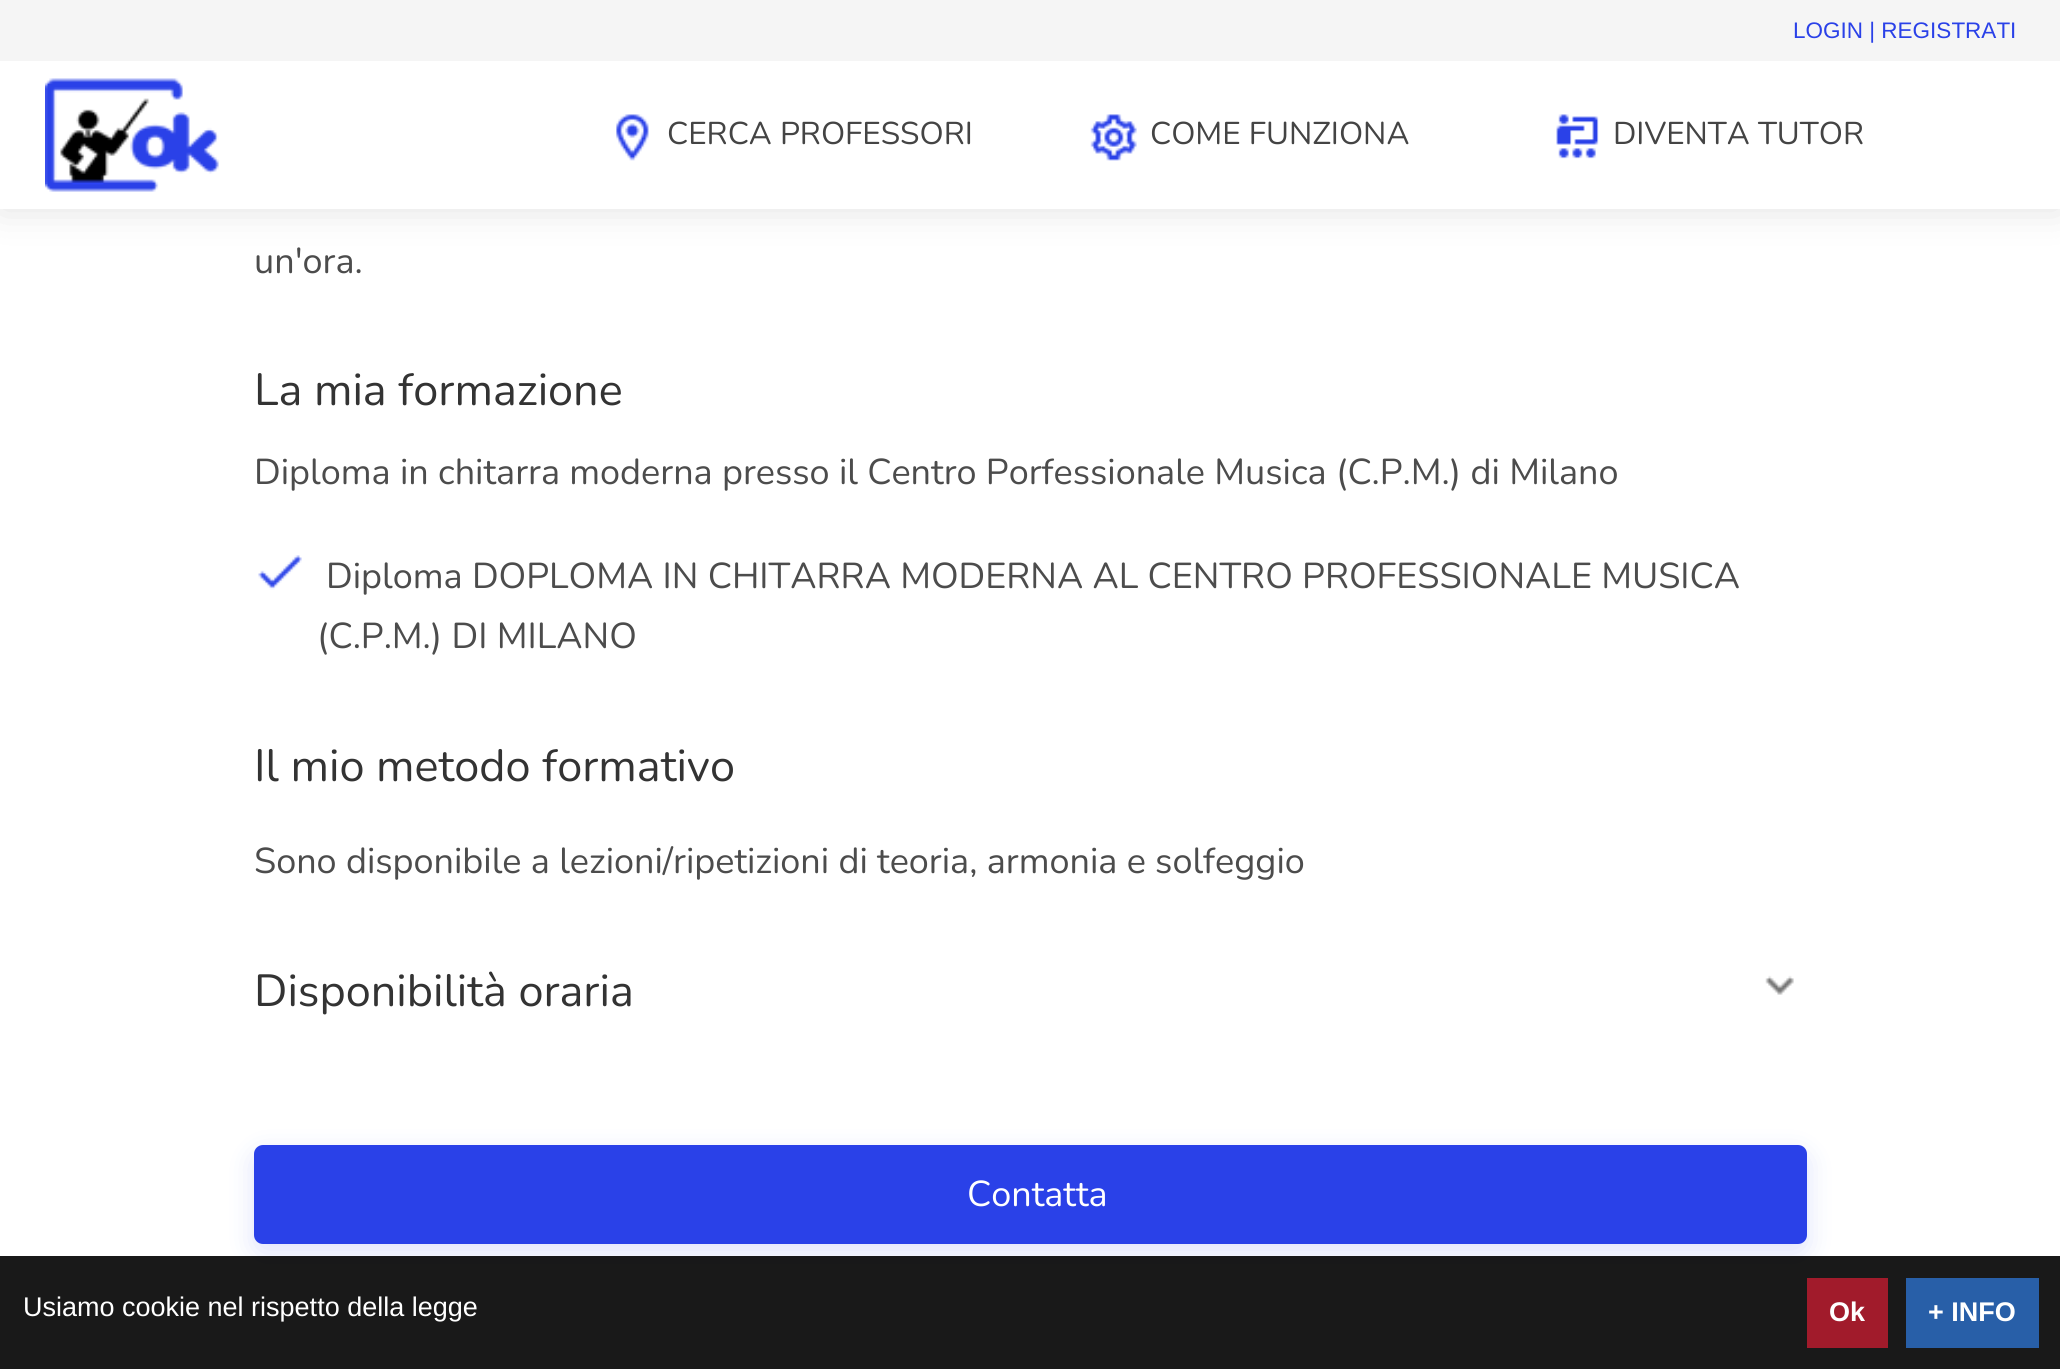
#include <cairo.h>
#include <math.h>
#include <stddef.h>


static void rgb(cairo_t *cr, int r, int g, int b)
{
	cairo_set_source_rgb(cr, r / 255.0, g / 255.0, b / 255.0);
}

static void face(cairo_t *cr, const char *family, double size, int italic, int bold)
{
	cairo_select_font_face(cr, family, italic ? CAIRO_FONT_SLANT_ITALIC : CAIRO_FONT_SLANT_NORMAL,
		bold ? CAIRO_FONT_WEIGHT_BOLD : CAIRO_FONT_WEIGHT_NORMAL);
	cairo_set_font_size(cr, size);
}

static void label(cairo_t *cr, double x, double y, const char *s)
{
	cairo_move_to(cr, x, y);
	cairo_show_text(cr, s);
}

static void rect(cairo_t *cr, double x, double y, double w, double h)
{
	cairo_rectangle(cr, x, y, w, h);
	cairo_fill(cr);
}

static void rrect(cairo_t *cr, double x, double y, double w, double h, double r)
{
	cairo_new_sub_path(cr);
	cairo_arc(cr, x + w - r, y + h - r, r, 0, M_PI / 2);
	cairo_arc(cr, x + r, y + h - r, r, M_PI / 2, M_PI);
	cairo_arc(cr, x + r, y + r, r, M_PI, 1.5 * M_PI);
	cairo_arc(cr, x + w - r, y + r, r, 1.5 * M_PI, 2 * M_PI);
	cairo_close_path(cr);
}

static void soft_shadow(cairo_t *cr, double x, double y, double w, double h, double r, double blur, double alpha)
{
	cairo_push_group_with_content(cr, CAIRO_CONTENT_ALPHA);
	cairo_set_operator(cr, CAIRO_OPERATOR_SOURCE);
	for (int i = 15; i >= -15 && fmin(w, h) + blur * i / 3 > 0; i -= 2) {
		double e = blur * i / 6;
		cairo_set_source_rgba(cr, 0, 0, 0, alpha * erfc((i - 1) / 8.5) / 2);
		rrect(cr, x - e, y - e, w + 2 * e, h + 2 * e, fmax(0, fmin(r + e + blur * .6, fmin(w, h) / 2 + e)));
		cairo_fill(cr);
	}
	cairo_pattern_t *soft = cairo_pop_group(cr);
	cairo_mask(cr, soft);
	cairo_pattern_destroy(soft);
}

static void image(cairo_t *cr, const char *path, double x, double y, double w, double h)
{
	cairo_surface_t *image = cairo_image_surface_create_from_png(path);
	cairo_save(cr);
	cairo_set_source_surface(cr, image, x, y);
	cairo_rectangle(cr, x, y, w, h);
	cairo_fill(cr);
	cairo_restore(cr);
	cairo_surface_destroy(image);
}

static void draw(cairo_t *cr) {
	rgb(cr, 255, 255, 255);
	cairo_paint(cr);
	rgb(cr, 0, 0, 0);
	soft_shadow(cr, 0, 0, 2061, 209, 0, 20, 0.12);
	rgb(cr, 255, 255, 255);
	rect(cr, 0, 61, 2060, 148);
	rgb(cr, 245, 245, 245);
	rect(cr, 0, 0, 2060, 61);
	face(cr, "Liberation Sans", 22.5, 0, 0);
	rgb(cr, 42, 65, 232);
	label(cr, 1793, 38, "LOGIN | REGISTRATI");
	image(cr, "image0.png", 45, 78, 174, 114);
	image(cr, "image1.png", 616, 114, 33, 47);
	face(cr, "Nunito", 31.5, 0, 0);
	rgb(cr, 68, 68, 68);
	label(cr, 667, 144, "CERCA PROFESSORI");
	image(cr, "image2.png", 1090, 114, 47, 47);
	label(cr, 1150, 144, "COME FUNZIONA");
	image(cr, "image3.png", 1556, 114, 43, 45);
	label(cr, 1613, 144, "DIVENTA TUTOR");
	face(cr, "Nunito", 36, 0, 0);
	rgb(cr, 76, 76, 76);
	label(cr, 254, 273, "un'ora.");
	face(cr, "Nunito", 45, 0, 0);
	rgb(cr, 51, 51, 51);
	label(cr, 254, 405, "La mia formazione");
	face(cr, "Nunito", 36, 0, 0);
	rgb(cr, 76, 76, 76);
	label(cr, 254, 484, "Diploma in chitarra moderna presso il Centro Porfessionale Musica (C.P.M.) di Milano");
	image(cr, "image4.png", 258, 555, 44, 35);
	label(cr, 326, 588, "Diploma DOPLOMA IN CHITARRA MODERNA AL CENTRO PROFESSIONALE MUSICA");
	label(cr, 317, 648, "(C.P.M.) DI MILANO");
	face(cr, "Nunito", 45, 0, 0);
	rgb(cr, 51, 51, 51);
	label(cr, 254, 781, "Il mio metodo formativo");
	face(cr, "Nunito", 36, 0, 0);
	rgb(cr, 76, 76, 76);
	label(cr, 254, 873, "Sono disponibile a lezioni/ripetizioni di teoria, armonia e solfeggio");
	face(cr, "Nunito", 45, 0, 0);
	rgb(cr, 51, 51, 51);
	label(cr, 254, 1006, "Disponibilità oraria");
	image(cr, "image5.png", 1765, 975, 29, 20);
	rgb(cr, 42, 65, 232);
	soft_shadow(cr, 254, 1154, 1553, 99, 9, 13.5, 0.15);
	rgb(cr, 42, 65, 232);
	rrect(cr, 254, 1145, 1553, 99, 9);
	cairo_fill(cr);
	face(cr, "Nunito", 36, 0, 0);
	rgb(cr, 255, 255, 255);
	label(cr, 967, 1206, "Contatta");
	cairo_set_source_rgba(cr, 0, 0, 0, 0.9);
	rect(cr, 0, 1256, 2060, 113);
	face(cr, "Liberation Sans", 27, 0, 0);
	rgb(cr, 255, 255, 255);
	label(cr, 23, 1316, "Usiamo cookie nel rispetto della legge");
	rgb(cr, 161, 27, 43);
	rect(cr, 1807, 1278, 81, 70);
	face(cr, "Liberation Sans", 27, 0, 1);
	rgb(cr, 255, 255, 255);
	label(cr, 1829, 1321, "Ok");
	rgb(cr, 40, 95, 168);
	rect(cr, 1906, 1278, 133, 70);
	rgb(cr, 255, 255, 255);
	label(cr, 1928, 1321, "+ INFO");
}

int main(void) {
	cairo_surface_t *surface = cairo_image_surface_create(CAIRO_FORMAT_RGB24, 2060, 1369);
	cairo_t *cr = cairo_create(surface);
	cairo_font_options_t *options = cairo_font_options_create();
	cairo_font_options_set_hint_metrics(options, CAIRO_HINT_METRICS_OFF);
	cairo_font_options_set_hint_style(options, CAIRO_HINT_STYLE_NONE);
	cairo_set_font_options(cr, options);
	cairo_set_miter_limit(cr, 4);
	draw(cr);
	cairo_surface_write_to_png(surface, "render.png");
	cairo_font_options_destroy(options);
	cairo_destroy(cr);
	cairo_surface_destroy(surface);
	return 0;
}
